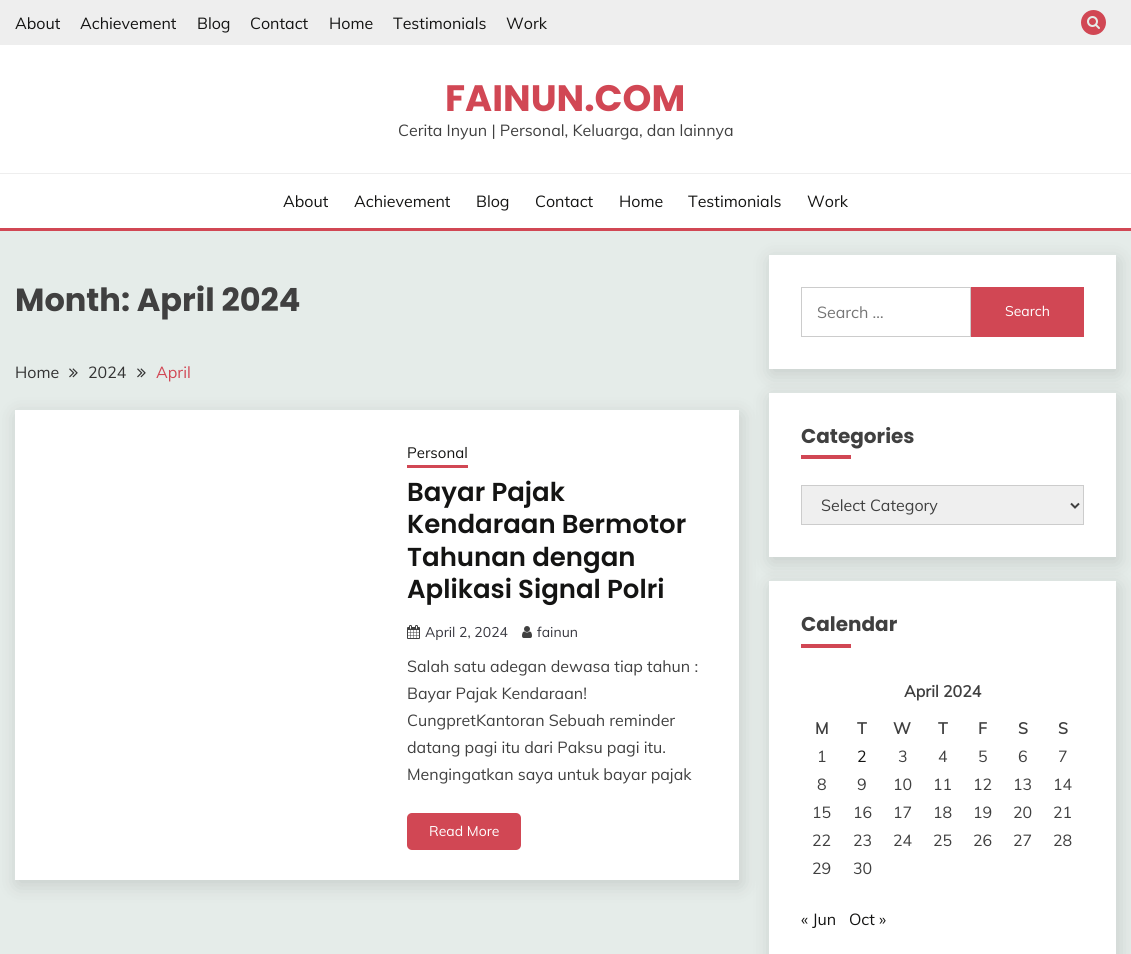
#include <cairo.h>
#include <math.h>
#include <stddef.h>


static void rgb(cairo_t *cr, int r, int g, int b)
{
	cairo_set_source_rgb(cr, r / 255.0, g / 255.0, b / 255.0);
}

static void face(cairo_t *cr, const char *family, double size, int italic, int bold)
{
	cairo_select_font_face(cr, family, italic ? CAIRO_FONT_SLANT_ITALIC : CAIRO_FONT_SLANT_NORMAL,
		bold ? CAIRO_FONT_WEIGHT_BOLD : CAIRO_FONT_WEIGHT_NORMAL);
	cairo_set_font_size(cr, size);
}

static void label(cairo_t *cr, double x, double y, const char *s)
{
	cairo_move_to(cr, x, y);
	cairo_show_text(cr, s);
}

static void rect(cairo_t *cr, double x, double y, double w, double h)
{
	cairo_rectangle(cr, x, y, w, h);
	cairo_fill(cr);
}

static void rrect(cairo_t *cr, double x, double y, double w, double h, double r)
{
	cairo_new_sub_path(cr);
	cairo_arc(cr, x + w - r, y + h - r, r, 0, M_PI / 2);
	cairo_arc(cr, x + r, y + h - r, r, M_PI / 2, M_PI);
	cairo_arc(cr, x + r, y + r, r, M_PI, 1.5 * M_PI);
	cairo_arc(cr, x + w - r, y + r, r, 1.5 * M_PI, 2 * M_PI);
	cairo_close_path(cr);
}

static void soft_shadow(cairo_t *cr, double x, double y, double w, double h, double r, double blur, double alpha)
{
	cairo_push_group_with_content(cr, CAIRO_CONTENT_ALPHA);
	cairo_set_operator(cr, CAIRO_OPERATOR_SOURCE);
	for (int i = 15; i >= -15 && fmin(w, h) + blur * i / 3 > 0; i -= 2) {
		double e = blur * i / 6;
		cairo_set_source_rgba(cr, 0, 0, 0, alpha * erfc((i - 1) / 8.5) / 2);
		rrect(cr, x - e, y - e, w + 2 * e, h + 2 * e, fmax(0, fmin(r + e + blur * .6, fmin(w, h) / 2 + e)));
		cairo_fill(cr);
	}
	cairo_pattern_t *soft = cairo_pop_group(cr);
	cairo_mask(cr, soft);
	cairo_pattern_destroy(soft);
}

static void image(cairo_t *cr, const char *path, double x, double y, double w, double h)
{
	cairo_surface_t *image = cairo_image_surface_create_from_png(path);
	cairo_save(cr);
	cairo_set_source_surface(cr, image, x, y);
	cairo_rectangle(cr, x, y, w, h);
	cairo_fill(cr);
	cairo_restore(cr);
	cairo_surface_destroy(image);
}

static void draw(cairo_t *cr) {
	rgb(cr, 229, 236, 233);
	cairo_paint(cr);
	rgb(cr, 255, 255, 255);
	rect(cr, 0, 45, 1131, 183);
	rgb(cr, 238, 238, 238);
	rect(cr, 0, 0, 1131, 45);
	face(cr, "Muli", 16, 0, 0);
	rgb(cr, 20, 20, 19);
	label(cr, 15, 29, "About");
	label(cr, 80, 29, "Achievement");
	label(cr, 197, 29, "Blog");
	label(cr, 250, 29, "Contact");
	label(cr, 329, 29, "Home");
	label(cr, 393, 29, "Testimonials");
	label(cr, 506, 29, "Work");
	rgb(cr, 209, 71, 84);
	cairo_new_path(cr);
	cairo_arc(cr, 1093.5, 22.5, 12.5, 0, 2 * M_PI);
	cairo_fill(cr);
	image(cr, "image0.png", 1087, 16, 13, 13);
	rgb(cr, 238, 238, 238);
	rect(cr, 0, 173, 1131, 1);
	face(cr, "Poppins", 36.75, 0, 1);
	rgb(cr, 209, 71, 84);
	label(cr, 445, 111, "FAINUN.COM");
	face(cr, "Muli", 16, 0, 0);
	rgb(cr, 64, 64, 64);
	label(cr, 398, 136, "Cerita Inyun | Personal, Keluarga, dan lainnya");
	rgb(cr, 0, 0, 0);
	soft_shadow(cr, 771, 260, 347, 114, 0, 10, 0.14);
	rgb(cr, 209, 71, 84);
	rect(cr, 0, 228, 1131, 3);
	rgb(cr, 20, 20, 19);
	label(cr, 283, 207, "About");
	label(cr, 354, 207, "Achievement");
	label(cr, 476, 207, "Blog");
	label(cr, 535, 207, "Contact");
	label(cr, 619, 207, "Home");
	label(cr, 688, 207, "Testimonials");
	label(cr, 807, 207, "Work");
	face(cr, "Poppins", 32, 0, 1);
	rgb(cr, 64, 64, 64);
	label(cr, 15, 311, "Month: April 2024");
	face(cr, "Muli", 16, 0, 0);
	rgb(cr, 51, 51, 51);
	label(cr, 15, 378, "Home");
	image(cr, "image1.png", 69, 368, 9, 10);
	label(cr, 88, 378, "2024");
	image(cr, "image1.png", 137, 368, 9, 10);
	rgb(cr, 209, 71, 84);
	label(cr, 156, 378, "April");
	rgb(cr, 0, 0, 0);
	soft_shadow(cr, 17, 415, 724, 470, 0, 10, 0.14);
	rgb(cr, 255, 255, 255);
	rect(cr, 15, 410, 724, 470);
	face(cr, "Muli", 15, 0, 0);
	rgb(cr, 20, 20, 19);
	label(cr, 407, 458, "Personal");
	rgb(cr, 209, 71, 84);
	rect(cr, 407, 465, 61, 3);
	face(cr, "Poppins SemiBold", 26, 0, 0);
	rgb(cr, 20, 20, 19);
	label(cr, 407, 501, "Bayar Pajak");
	label(cr, 407, 533, "Kendaraan Bermotor");
	label(cr, 407, 566, "Tahunan dengan");
	label(cr, 407, 598, "Aplikasi Signal Polri");
	image(cr, "image2.png", 407, 625, 13, 14);
	face(cr, "Muli", 14, 0, 0);
	rgb(cr, 55, 55, 63);
	label(cr, 425, 637, "April 2, 2024");
	image(cr, "image3.png", 522, 626, 10, 12);
	label(cr, 537, 637, "fainun");
	face(cr, "Muli", 16, 0, 0);
	rgb(cr, 64, 64, 64);
	label(cr, 407, 672, "Salah satu adegan dewasa tiap tahun :");
	label(cr, 407, 699, "Bayar Pajak Kendaraan!");
	label(cr, 407, 726, "CungpretKantoran Sebuah reminder");
	label(cr, 407, 753, "datang pagi itu dari Paksu pagi itu.");
	label(cr, 407, 780, "Mengingatkan saya untuk bayar pajak");
	rgb(cr, 209, 71, 84);
	rrect(cr, 407, 813, 114, 37, 5);
	cairo_fill(cr);
	face(cr, "Muli", 14, 0, 0);
	rgb(cr, 255, 255, 255);
	label(cr, 429, 836, "Read More");
	rect(cr, 769, 255, 347, 114);
	cairo_rectangle(cr, 801.5, 287.5, 169, 49);
	rgb(cr, 204, 204, 204);
	cairo_set_line_width(cr, 1);
	cairo_stroke(cr);
	face(cr, "Muli", 16, 0, 0);
	rgb(cr, 117, 117, 117);
	label(cr, 817, 318, "Search …");
	rgb(cr, 209, 71, 84);
	rect(cr, 971, 287, 113, 50);
	face(cr, "Muli", 14, 0, 0);
	rgb(cr, 255, 255, 255);
	label(cr, 1005, 316, "Search");
	rgb(cr, 0, 0, 0);
	soft_shadow(cr, 771, 398, 347, 164, 0, 10, 0.14);
	rgb(cr, 255, 255, 255);
	rect(cr, 769, 393, 347, 164);
	face(cr, "Poppins", 20, 0, 1);
	rgb(cr, 64, 64, 64);
	label(cr, 801, 443, "Categories");
	rgb(cr, 209, 71, 84);
	rect(cr, 801, 455, 50, 4);
	rgb(cr, 239, 239, 239);
	cairo_rectangle(cr, 801.5, 485.5, 282, 39);
	cairo_fill_preserve(cr);
	rgb(cr, 204, 204, 204);
	cairo_stroke(cr);
	cairo_new_path(cr);
	cairo_move_to(cr, 1071, 503.5);
	cairo_line_to(cr, 1075, 507.5);
	cairo_line_to(cr, 1079, 503.5);
	rgb(cr, 64, 64, 64);
	cairo_set_line_width(cr, 2);
	cairo_stroke(cr);
	face(cr, "Muli", 16, 0, 0);
	label(cr, 821, 511, "Select Category");
	rgb(cr, 0, 0, 0);
	soft_shadow(cr, 771, 586, 347, 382, 0, 10, 0.14);
	rgb(cr, 255, 255, 255);
	rect(cr, 769, 581, 347, 373);
	face(cr, "Poppins", 20, 0, 1);
	rgb(cr, 64, 64, 64);
	label(cr, 801, 631, "Calendar");
	rgb(cr, 209, 71, 84);
	rect(cr, 801, 644, 50, 4);
	face(cr, "Muli", 16, 0, 1);
	rgb(cr, 64, 64, 64);
	label(cr, 904, 697, "April 2024");
	label(cr, 815, 734, "M");
	label(cr, 857, 734, "T");
	label(cr, 893, 734, "W");
	label(cr, 938, 734, "T");
	label(cr, 978, 734, "F");
	label(cr, 1018, 734, "S");
	label(cr, 1058, 734, "S");
	face(cr, "Muli", 16, 0, 0);
	label(cr, 817, 762, "1");
	rgb(cr, 20, 20, 19);
	label(cr, 857, 762, "2");
	rgb(cr, 64, 64, 64);
	label(cr, 898, 762, "3");
	label(cr, 938, 762, "4");
	label(cr, 978, 762, "5");
	label(cr, 1018, 762, "6");
	label(cr, 1058, 762, "7");
	label(cr, 817, 790, "8");
	label(cr, 857, 790, "9");
	label(cr, 893, 790, "10");
	label(cr, 933, 790, "11");
	label(cr, 973, 790, "12");
	label(cr, 1013, 790, "13");
	label(cr, 1053, 790, "14");
	label(cr, 812, 818, "15");
	label(cr, 853, 818, "16");
	label(cr, 893, 818, "17");
	label(cr, 933, 818, "18");
	label(cr, 973, 818, "19");
	label(cr, 1013, 818, "20");
	label(cr, 1053, 818, "21");
	label(cr, 812, 846, "22");
	label(cr, 853, 846, "23");
	label(cr, 893, 846, "24");
	label(cr, 933, 846, "25");
	label(cr, 973, 846, "26");
	label(cr, 1013, 846, "27");
	label(cr, 1053, 846, "28");
	label(cr, 812, 874, "29");
	label(cr, 853, 874, "30");
	rgb(cr, 20, 20, 19);
	label(cr, 801, 925, "« Jun");
	label(cr, 849, 925, "Oct »");
}

int main(void) {
	cairo_surface_t *surface = cairo_image_surface_create(CAIRO_FORMAT_RGB24, 1131, 954);
	cairo_t *cr = cairo_create(surface);
	cairo_font_options_t *options = cairo_font_options_create();
	cairo_font_options_set_hint_metrics(options, CAIRO_HINT_METRICS_OFF);
	cairo_font_options_set_hint_style(options, CAIRO_HINT_STYLE_NONE);
	cairo_set_font_options(cr, options);
	cairo_set_miter_limit(cr, 4);
	draw(cr);
	cairo_surface_write_to_png(surface, "render.png");
	cairo_font_options_destroy(options);
	cairo_destroy(cr);
	cairo_surface_destroy(surface);
	return 0;
}
